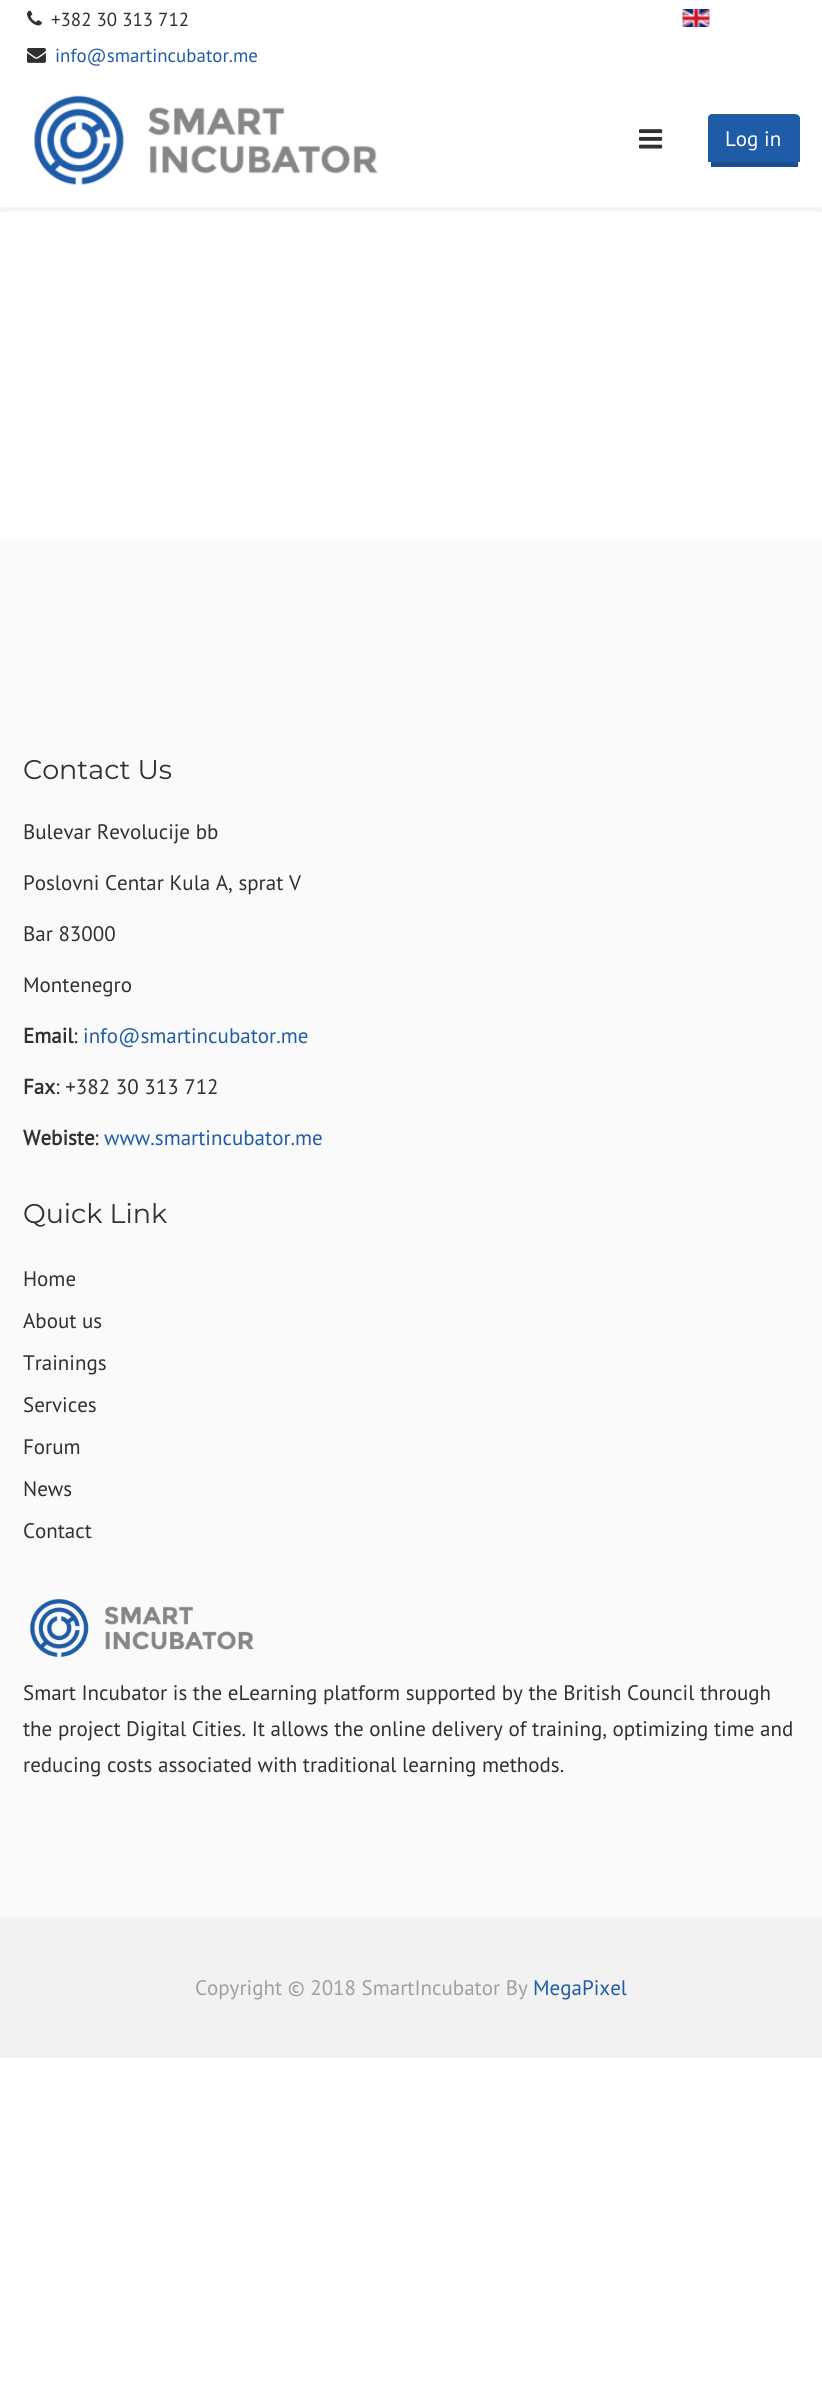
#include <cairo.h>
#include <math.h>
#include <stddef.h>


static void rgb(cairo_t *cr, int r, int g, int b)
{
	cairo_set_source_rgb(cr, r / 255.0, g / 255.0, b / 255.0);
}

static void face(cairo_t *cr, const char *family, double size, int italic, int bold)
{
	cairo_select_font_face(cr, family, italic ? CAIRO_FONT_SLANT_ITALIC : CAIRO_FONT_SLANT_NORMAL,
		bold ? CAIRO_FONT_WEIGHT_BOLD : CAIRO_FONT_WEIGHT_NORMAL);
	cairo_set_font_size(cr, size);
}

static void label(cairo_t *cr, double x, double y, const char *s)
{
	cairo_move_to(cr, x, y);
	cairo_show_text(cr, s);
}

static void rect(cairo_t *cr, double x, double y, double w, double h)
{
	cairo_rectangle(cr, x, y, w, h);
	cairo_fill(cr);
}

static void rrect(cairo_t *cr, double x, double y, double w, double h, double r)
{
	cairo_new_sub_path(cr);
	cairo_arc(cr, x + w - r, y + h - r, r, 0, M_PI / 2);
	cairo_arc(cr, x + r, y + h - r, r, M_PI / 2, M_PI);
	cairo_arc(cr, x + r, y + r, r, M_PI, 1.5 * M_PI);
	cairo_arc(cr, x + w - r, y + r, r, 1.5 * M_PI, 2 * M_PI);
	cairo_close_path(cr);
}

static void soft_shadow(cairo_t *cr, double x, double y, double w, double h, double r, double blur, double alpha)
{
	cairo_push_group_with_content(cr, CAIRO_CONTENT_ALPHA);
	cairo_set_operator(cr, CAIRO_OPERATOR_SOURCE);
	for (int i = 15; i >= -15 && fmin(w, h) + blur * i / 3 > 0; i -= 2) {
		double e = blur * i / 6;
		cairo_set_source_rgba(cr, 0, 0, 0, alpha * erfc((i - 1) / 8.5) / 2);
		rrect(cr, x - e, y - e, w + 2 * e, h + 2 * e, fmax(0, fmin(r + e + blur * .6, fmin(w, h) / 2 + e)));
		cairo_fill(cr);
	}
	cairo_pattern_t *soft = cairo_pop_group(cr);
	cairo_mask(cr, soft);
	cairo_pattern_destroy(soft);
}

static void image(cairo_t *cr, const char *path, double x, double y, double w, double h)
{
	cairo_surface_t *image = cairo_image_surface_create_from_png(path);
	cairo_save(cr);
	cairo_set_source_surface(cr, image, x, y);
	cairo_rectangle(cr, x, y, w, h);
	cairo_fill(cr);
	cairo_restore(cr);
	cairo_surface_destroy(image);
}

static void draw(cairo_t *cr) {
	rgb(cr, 255, 255, 255);
	cairo_paint(cr);
	image(cr, "image0.png", 27, 10, 15, 16);
	face(cr, "PT Sans", 18.9, 0, 0);
	rgb(cr, 48, 48, 48);
	label(cr, 51, 26, "+382 30 313 712");
	image(cr, "image1.png", 27, 48, 19, 15);
	rgb(cr, 31, 92, 168);
	label(cr, 55, 62, "info@smartincubator.me");
	image(cr, "image2.png", 682, 9, 28, 18);
	cairo_save(cr);
	cairo_rectangle(cr, 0, 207, 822, 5);
	cairo_clip(cr);
	rgb(cr, 0, 0, 0);
	soft_shadow(cr, 0, 77, 822, 135, 0, 2, 0.05);
	cairo_restore(cr);
	image(cr, "image3.png", 34, 95, 344, 90);
	image(cr, "image4.png", 639, 129, 24, 20);
	cairo_new_path(cr);
	cairo_move_to(cr, 712, 114);
	cairo_line_to(cr, 795, 114);
	cairo_curve_to(cr, 797, 114, 800, 116, 800, 118);
	cairo_line_to(cr, 800, 162);
	cairo_line_to(cr, 708, 162);
	cairo_line_to(cr, 708, 118);
	cairo_curve_to(cr, 708, 116, 710, 114, 712, 114);
	cairo_close_path(cr);
	cairo_fill(cr);
	rgb(cr, 26, 78, 142);
	rect(cr, 711, 162, 87, 5);
	face(cr, "PT Sans", 21, 0, 0);
	rgb(cr, 255, 255, 255);
	label(cr, 725, 146, "Log in");
	rgb(cr, 250, 250, 250);
	rect(cr, 0, 539, 822, 1378);
	face(cr, "Montserrat Thin", 27, 0, 0);
	rgb(cr, 48, 48, 48);
	label(cr, 23, 779, "Contact Us");
	face(cr, "PT Sans", 21, 0, 0);
	label(cr, 23, 839, "Bulevar Revolucije bb");
	label(cr, 23, 890, "Poslovni Centar Kula A, sprat V");
	label(cr, 23, 941, "Bar 83000");
	label(cr, 23, 992, "Montenegro");
	face(cr, "PT Sans", 21, 0, 1);
	label(cr, 23, 1043, "Email");
	face(cr, "PT Sans", 21, 0, 0);
	label(cr, 73, 1043, ":");
	rgb(cr, 31, 92, 168);
	label(cr, 83, 1043, "info@smartincubator.me");
	face(cr, "PT Sans", 21, 0, 1);
	rgb(cr, 48, 48, 48);
	label(cr, 23, 1094, "Fax");
	face(cr, "PT Sans", 21, 0, 0);
	label(cr, 55, 1094, ": +382 30 313 712");
	face(cr, "PT Sans", 21, 0, 1);
	label(cr, 23, 1145, "Webiste");
	face(cr, "PT Sans", 21, 0, 0);
	label(cr, 94, 1145, ":");
	rgb(cr, 31, 92, 168);
	label(cr, 104, 1145, "www.smartincubator.me");
	face(cr, "Montserrat Thin", 27, 0, 0);
	rgb(cr, 48, 48, 48);
	label(cr, 23, 1223, "Quick Link");
	face(cr, "PT Sans", 21, 0, 0);
	label(cr, 23, 1286, "Home");
	label(cr, 23, 1328, "About us");
	label(cr, 23, 1370, "Trainings");
	label(cr, 23, 1412, "Services");
	label(cr, 23, 1454, "Forum");
	label(cr, 23, 1496, "News");
	label(cr, 23, 1538, "Contact");
	image(cr, "image5.png", 30, 1599, 224, 58);
	label(cr, 23, 1700, "Smart Incubator is the eLearning platform supported by the British Council through");
	label(cr, 23, 1736, "the project Digital Cities. It allows the online delivery of training, optimizing time and");
	label(cr, 23, 1772, "reducing costs associated with traditional learning methods.");
	rgb(cr, 242, 242, 242);
	rect(cr, 0, 1917, 822, 141);
	rgb(cr, 159, 159, 159);
	label(cr, 195, 1995, "Copyright © 2018 SmartIncubator By");
	rgb(cr, 31, 92, 168);
	label(cr, 533, 1995, "MegaPixel");
}

int main(void) {
	cairo_surface_t *surface = cairo_image_surface_create(CAIRO_FORMAT_RGB24, 822, 2404);
	cairo_t *cr = cairo_create(surface);
	cairo_font_options_t *options = cairo_font_options_create();
	cairo_font_options_set_hint_metrics(options, CAIRO_HINT_METRICS_OFF);
	cairo_font_options_set_hint_style(options, CAIRO_HINT_STYLE_NONE);
	cairo_set_font_options(cr, options);
	cairo_set_miter_limit(cr, 4);
	draw(cr);
	cairo_surface_write_to_png(surface, "render.png");
	cairo_font_options_destroy(options);
	cairo_destroy(cr);
	cairo_surface_destroy(surface);
	return 0;
}
